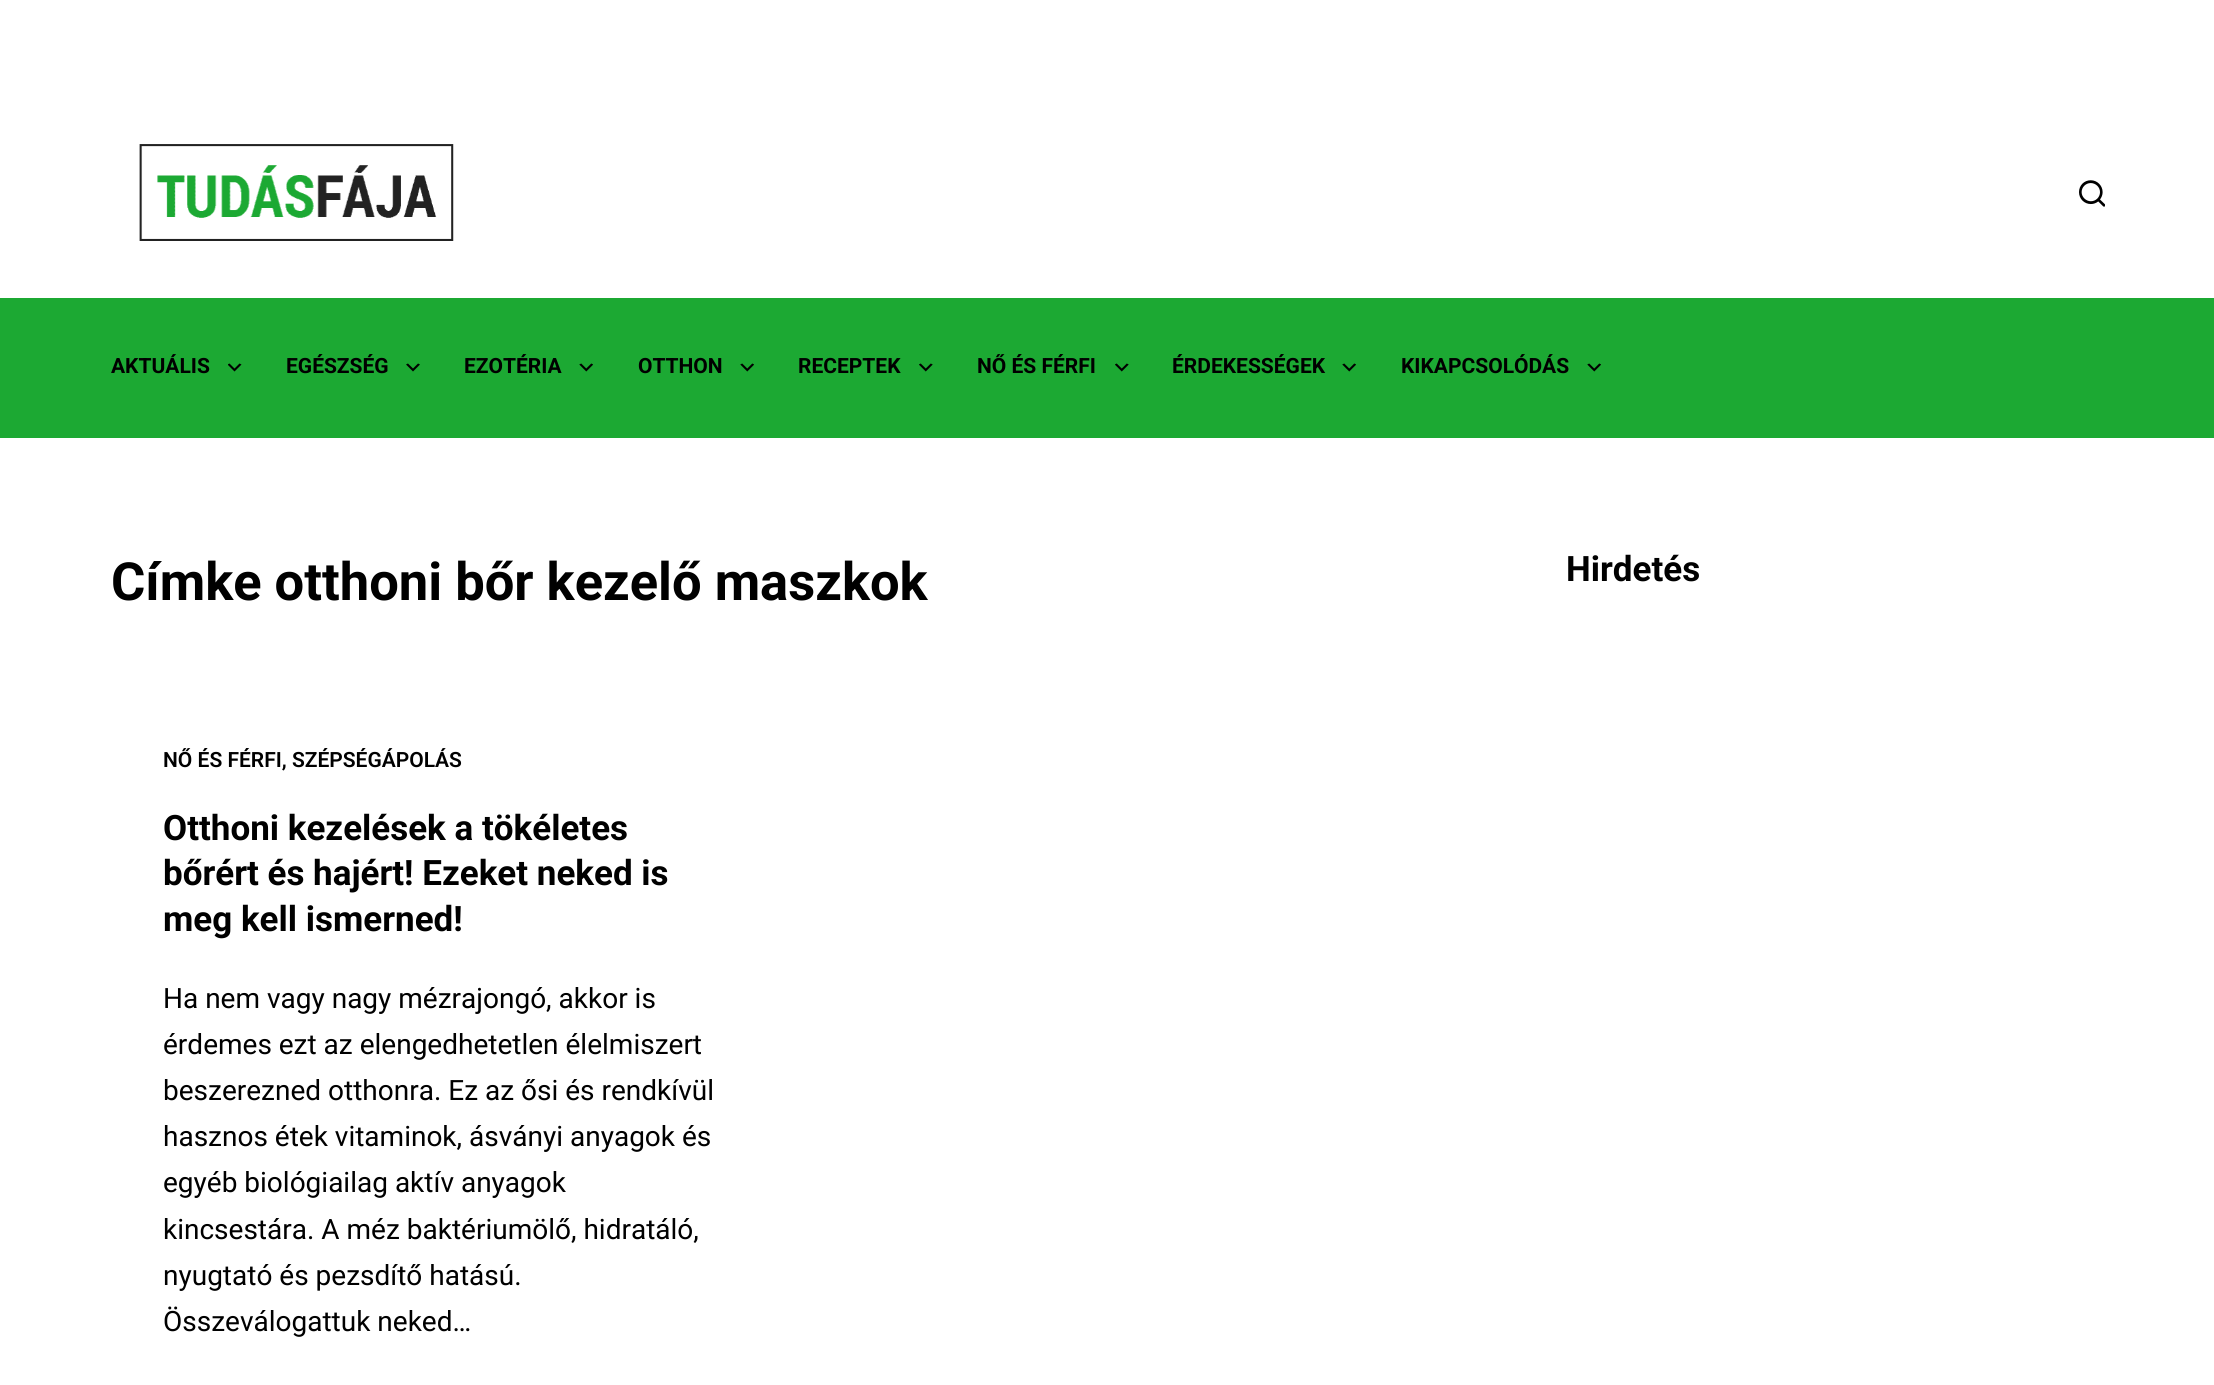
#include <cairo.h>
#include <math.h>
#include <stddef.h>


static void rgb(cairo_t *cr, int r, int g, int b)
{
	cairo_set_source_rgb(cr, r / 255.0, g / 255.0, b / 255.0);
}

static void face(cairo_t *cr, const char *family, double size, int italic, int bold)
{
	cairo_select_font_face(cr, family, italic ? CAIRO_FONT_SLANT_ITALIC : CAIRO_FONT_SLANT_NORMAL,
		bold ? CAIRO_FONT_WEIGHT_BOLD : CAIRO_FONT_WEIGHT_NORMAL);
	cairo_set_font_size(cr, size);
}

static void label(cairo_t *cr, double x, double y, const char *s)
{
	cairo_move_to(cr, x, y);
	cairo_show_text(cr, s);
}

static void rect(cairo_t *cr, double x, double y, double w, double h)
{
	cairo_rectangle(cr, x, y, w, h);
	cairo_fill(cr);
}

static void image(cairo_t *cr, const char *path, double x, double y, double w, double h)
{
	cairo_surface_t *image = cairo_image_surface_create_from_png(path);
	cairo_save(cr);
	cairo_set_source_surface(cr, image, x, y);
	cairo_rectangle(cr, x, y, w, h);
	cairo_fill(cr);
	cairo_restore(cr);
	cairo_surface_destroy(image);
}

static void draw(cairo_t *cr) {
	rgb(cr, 255, 255, 255);
	cairo_paint(cr);
	image(cr, "image0.png", 139, 144, 315, 97);
	image(cr, "image1.png", 2079, 180, 26, 27);
	rgb(cr, 28, 169, 51);
	rect(cr, 0, 298, 2214, 140);
	face(cr, "Roboto", 21, 0, 1);
	rgb(cr, 0, 0, 0);
	label(cr, 111, 373, "AKTUÁLIS");
	image(cr, "image2.png", 228, 363, 14, 9);
	label(cr, 286, 373, "EGÉSZSÉG");
	image(cr, "image3.png", 406, 363, 14, 9);
	label(cr, 464, 373, "EZOTÉRIA");
	image(cr, "image4.png", 579, 363, 14, 9);
	label(cr, 638, 373, "OTTHON");
	image(cr, "image4.png", 740, 363, 14, 9);
	label(cr, 798, 373, "RECEPTEK");
	image(cr, "image5.png", 919, 363, 14, 9);
	label(cr, 977, 373, "NŐ ÉS FÉRFI");
	image(cr, "image5.png", 1115, 363, 14, 9);
	label(cr, 1172, 373, "ÉRDEKESSÉGEK");
	image(cr, "image4.png", 1342, 363, 14, 9);
	label(cr, 1401, 373, "KIKAPCSOLÓDÁS");
	image(cr, "image4.png", 1587, 363, 14, 9);
	face(cr, "Roboto", 52.5, 0, 1);
	label(cr, 111, 600, "Címke otthoni bőr kezelő maszkok");
	face(cr, "Roboto SemiBold", 21, 0, 0);
	label(cr, 163, 767, "NŐ ÉS FÉRFI, SZÉPSÉGÁPOLÁS");
	face(cr, "Roboto", 35, 0, 1);
	label(cr, 163, 840, "Otthoni kezelések a tökéletes");
	label(cr, 163, 885, "bőrért és hajért! Ezeket neked is");
	label(cr, 163, 931, "meg kell ismerned!");
	face(cr, "Roboto", 28, 0, 0);
	label(cr, 163, 1008, "Ha nem vagy nagy mézrajongó, akkor is");
	label(cr, 163, 1054, "érdemes ezt az elengedhetetlen élelmiszert");
	label(cr, 163, 1100, "beszerezned otthonra. Ez az ősi és rendkívül");
	label(cr, 163, 1146, "hasznos étek vitaminok, ásványi anyagok és");
	label(cr, 163, 1192, "egyéb biológiailag aktív anyagok");
	label(cr, 163, 1239, "kincsestára. A méz baktériumölő, hidratáló,");
	label(cr, 163, 1285, "nyugtató és pezsdítő hatású.");
	label(cr, 163, 1331, "Összeválogattuk neked…");
	face(cr, "Roboto", 35, 0, 1);
	label(cr, 1566, 581, "Hirdetés");
}

int main(void) {
	cairo_surface_t *surface = cairo_image_surface_create(CAIRO_FORMAT_RGB24, 2214, 1385);
	cairo_t *cr = cairo_create(surface);
	cairo_font_options_t *options = cairo_font_options_create();
	cairo_font_options_set_hint_metrics(options, CAIRO_HINT_METRICS_OFF);
	cairo_font_options_set_hint_style(options, CAIRO_HINT_STYLE_NONE);
	cairo_set_font_options(cr, options);
	cairo_set_miter_limit(cr, 4);
	draw(cr);
	cairo_surface_write_to_png(surface, "render.png");
	cairo_font_options_destroy(options);
	cairo_destroy(cr);
	cairo_surface_destroy(surface);
	return 0;
}
